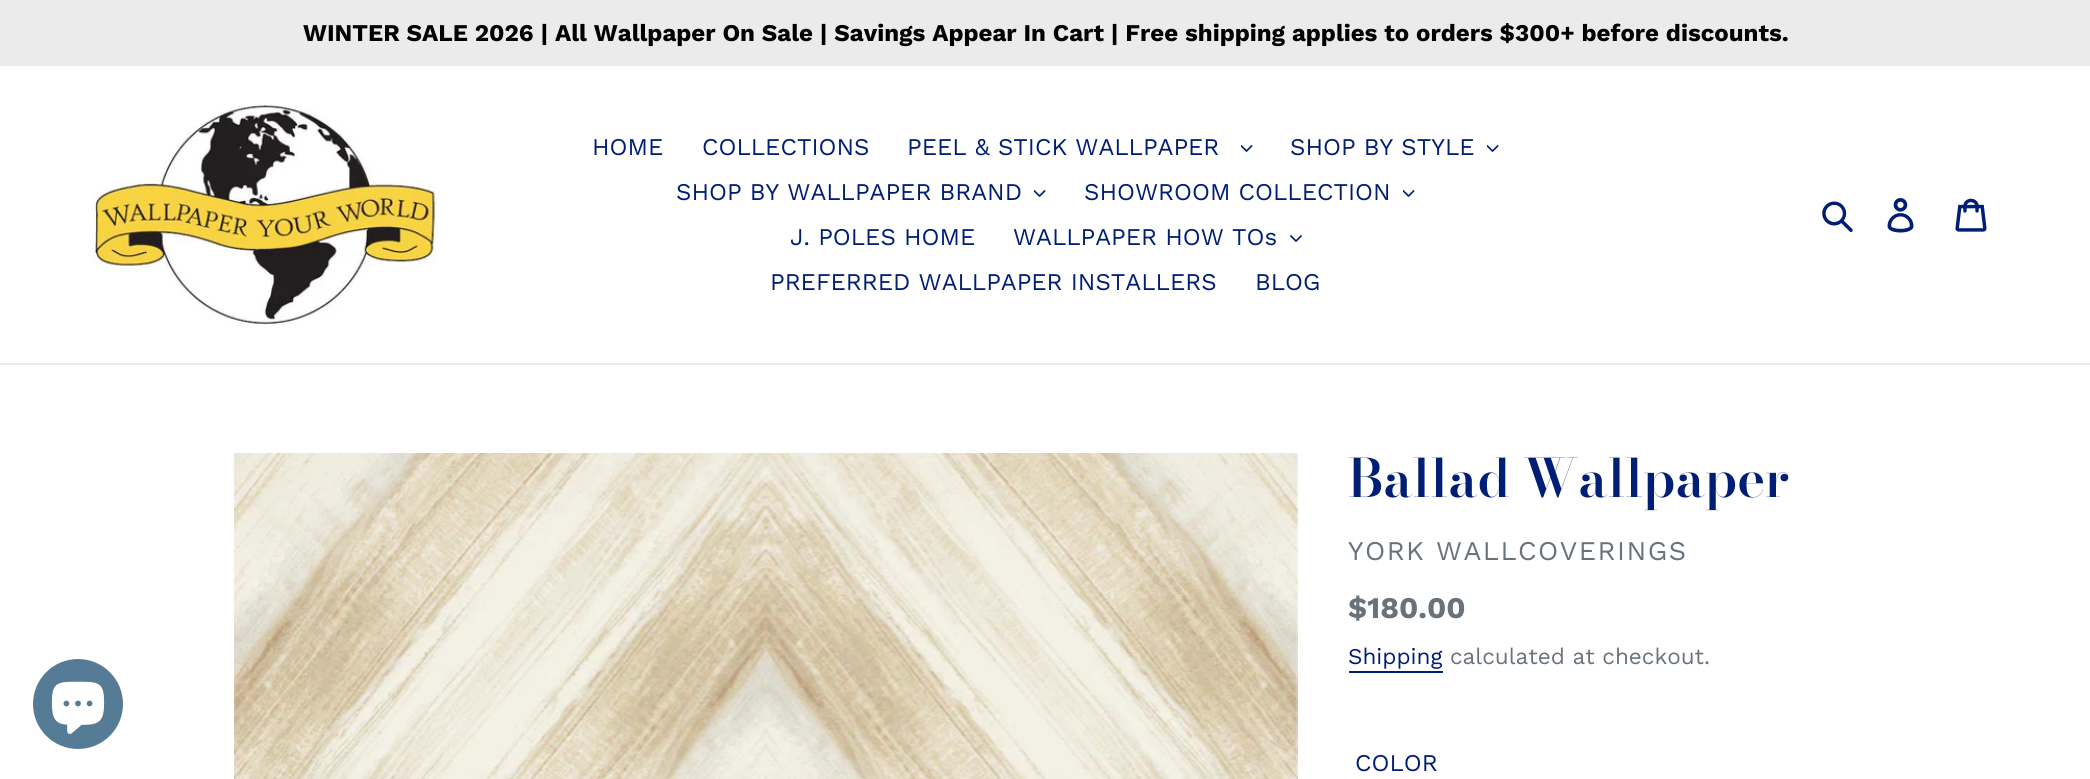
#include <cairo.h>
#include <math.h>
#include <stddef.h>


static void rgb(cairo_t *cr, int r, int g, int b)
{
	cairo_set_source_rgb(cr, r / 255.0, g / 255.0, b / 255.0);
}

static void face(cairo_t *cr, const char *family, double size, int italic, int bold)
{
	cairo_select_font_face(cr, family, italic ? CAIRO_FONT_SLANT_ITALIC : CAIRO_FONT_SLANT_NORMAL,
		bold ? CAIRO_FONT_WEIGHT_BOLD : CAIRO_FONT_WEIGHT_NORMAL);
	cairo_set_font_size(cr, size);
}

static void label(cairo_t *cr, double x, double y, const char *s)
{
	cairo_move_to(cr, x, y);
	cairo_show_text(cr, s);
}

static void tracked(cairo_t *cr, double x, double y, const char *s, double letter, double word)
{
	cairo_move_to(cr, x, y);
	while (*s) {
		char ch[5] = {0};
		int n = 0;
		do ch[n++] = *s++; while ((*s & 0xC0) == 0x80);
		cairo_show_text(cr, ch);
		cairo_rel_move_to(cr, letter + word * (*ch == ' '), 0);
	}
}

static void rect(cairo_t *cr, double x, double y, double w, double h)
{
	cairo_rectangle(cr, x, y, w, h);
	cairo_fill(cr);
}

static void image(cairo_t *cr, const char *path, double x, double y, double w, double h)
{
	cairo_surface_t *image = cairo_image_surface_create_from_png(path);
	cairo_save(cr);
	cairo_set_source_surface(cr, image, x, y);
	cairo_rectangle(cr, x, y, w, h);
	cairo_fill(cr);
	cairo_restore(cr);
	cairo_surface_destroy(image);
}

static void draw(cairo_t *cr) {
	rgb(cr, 255, 255, 255);
	cairo_paint(cr);
	rgb(cr, 235, 235, 235);
	rect(cr, 0, 0, 2090, 66);
	face(cr, "Work Sans", 24, 0, 1);
	rgb(cr, 0, 0, 0);
	label(cr, 303, 41, "WINTER SALE 2026 | All Wallpaper On Sale | Savings Appear In Cart | Free shipping applies to orders $300+ before discounts.");
	rgb(cr, 232, 233, 235);
	rect(cr, 0, 363, 2090, 2);
	image(cr, "image0.png", 92, 105, 345, 221);
	face(cr, "Work Sans", 24, 0, 0);
	rgb(cr, 0, 30, 116);
	label(cr, 592, 155, "HOME");
	label(cr, 702, 155, "COLLECTIONS");
	label(cr, 907, 155, "PEEL & STICK WALLPAPER");
	image(cr, "image1.png", 1241, 145, 12, 7);
	label(cr, 1290, 155, "SHOP BY STYLE");
	image(cr, "image1.png", 1487, 145, 12, 7);
	label(cr, 676, 200, "SHOP BY WALLPAPER BRAND");
	image(cr, "image1.png", 1034, 190, 12, 7);
	label(cr, 1084, 200, "SHOWROOM COLLECTION");
	image(cr, "image1.png", 1403, 190, 12, 7);
	label(cr, 790, 245, "J. POLES HOME");
	label(cr, 1013, 245, "WALLPAPER HOW TOs");
	image(cr, "image2.png", 1290, 235, 12, 7);
	label(cr, 770, 290, "PREFERRED WALLPAPER INSTALLERS");
	label(cr, 1255, 290, "BLOG");
	image(cr, "image3.png", 1822, 201, 31, 31);
	image(cr, "image4.png", 1887, 198, 27, 35);
	image(cr, "image5.png", 1955, 198, 32, 34);
	rgb(cr, 85, 123, 151);
	cairo_arc(cr, 78, 704, 45, 0, 2 * M_PI);
	cairo_fill(cr);
	image(cr, "image6.png", 51, 681, 54, 53);
	image(cr, "image7.png", 234, 453, 1064, 326);
	face(cr, "Bodoni Moda SemiBold", 52.5, 0, 0);
	rgb(cr, 0, 30, 116);
	label(cr, 1348, 497, "Ballad Wallpaper");
	face(cr, "Work Sans", 27, 0, 0);
	rgb(cr, 105, 114, 123);
	tracked(cr, 1348, 560, "YORK WALLCOVERINGS", 1.5, 0);
	face(cr, "Work Sans", 30, 0, 1);
	label(cr, 1348, 618, "$180.00");
	face(cr, "Work Sans", 22.5, 0, 0);
	rgb(cr, 0, 30, 116);
	label(cr, 1348, 664, "Shipping");
	rect(cr, 1349, 671, 94, 2);
	rgb(cr, 105, 114, 123);
	label(cr, 1450, 664, "calculated at checkout.");
	face(cr, "Work Sans", 24, 0, 0);
	rgb(cr, 0, 30, 116);
	label(cr, 1355, 771, "COLOR");
}

int main(void) {
	cairo_surface_t *surface = cairo_image_surface_create(CAIRO_FORMAT_RGB24, 2090, 779);
	cairo_t *cr = cairo_create(surface);
	cairo_font_options_t *options = cairo_font_options_create();
	cairo_font_options_set_hint_metrics(options, CAIRO_HINT_METRICS_OFF);
	cairo_font_options_set_hint_style(options, CAIRO_HINT_STYLE_NONE);
	cairo_set_font_options(cr, options);
	cairo_set_miter_limit(cr, 4);
	draw(cr);
	cairo_surface_write_to_png(surface, "render.png");
	cairo_font_options_destroy(options);
	cairo_destroy(cr);
	cairo_surface_destroy(surface);
	return 0;
}
